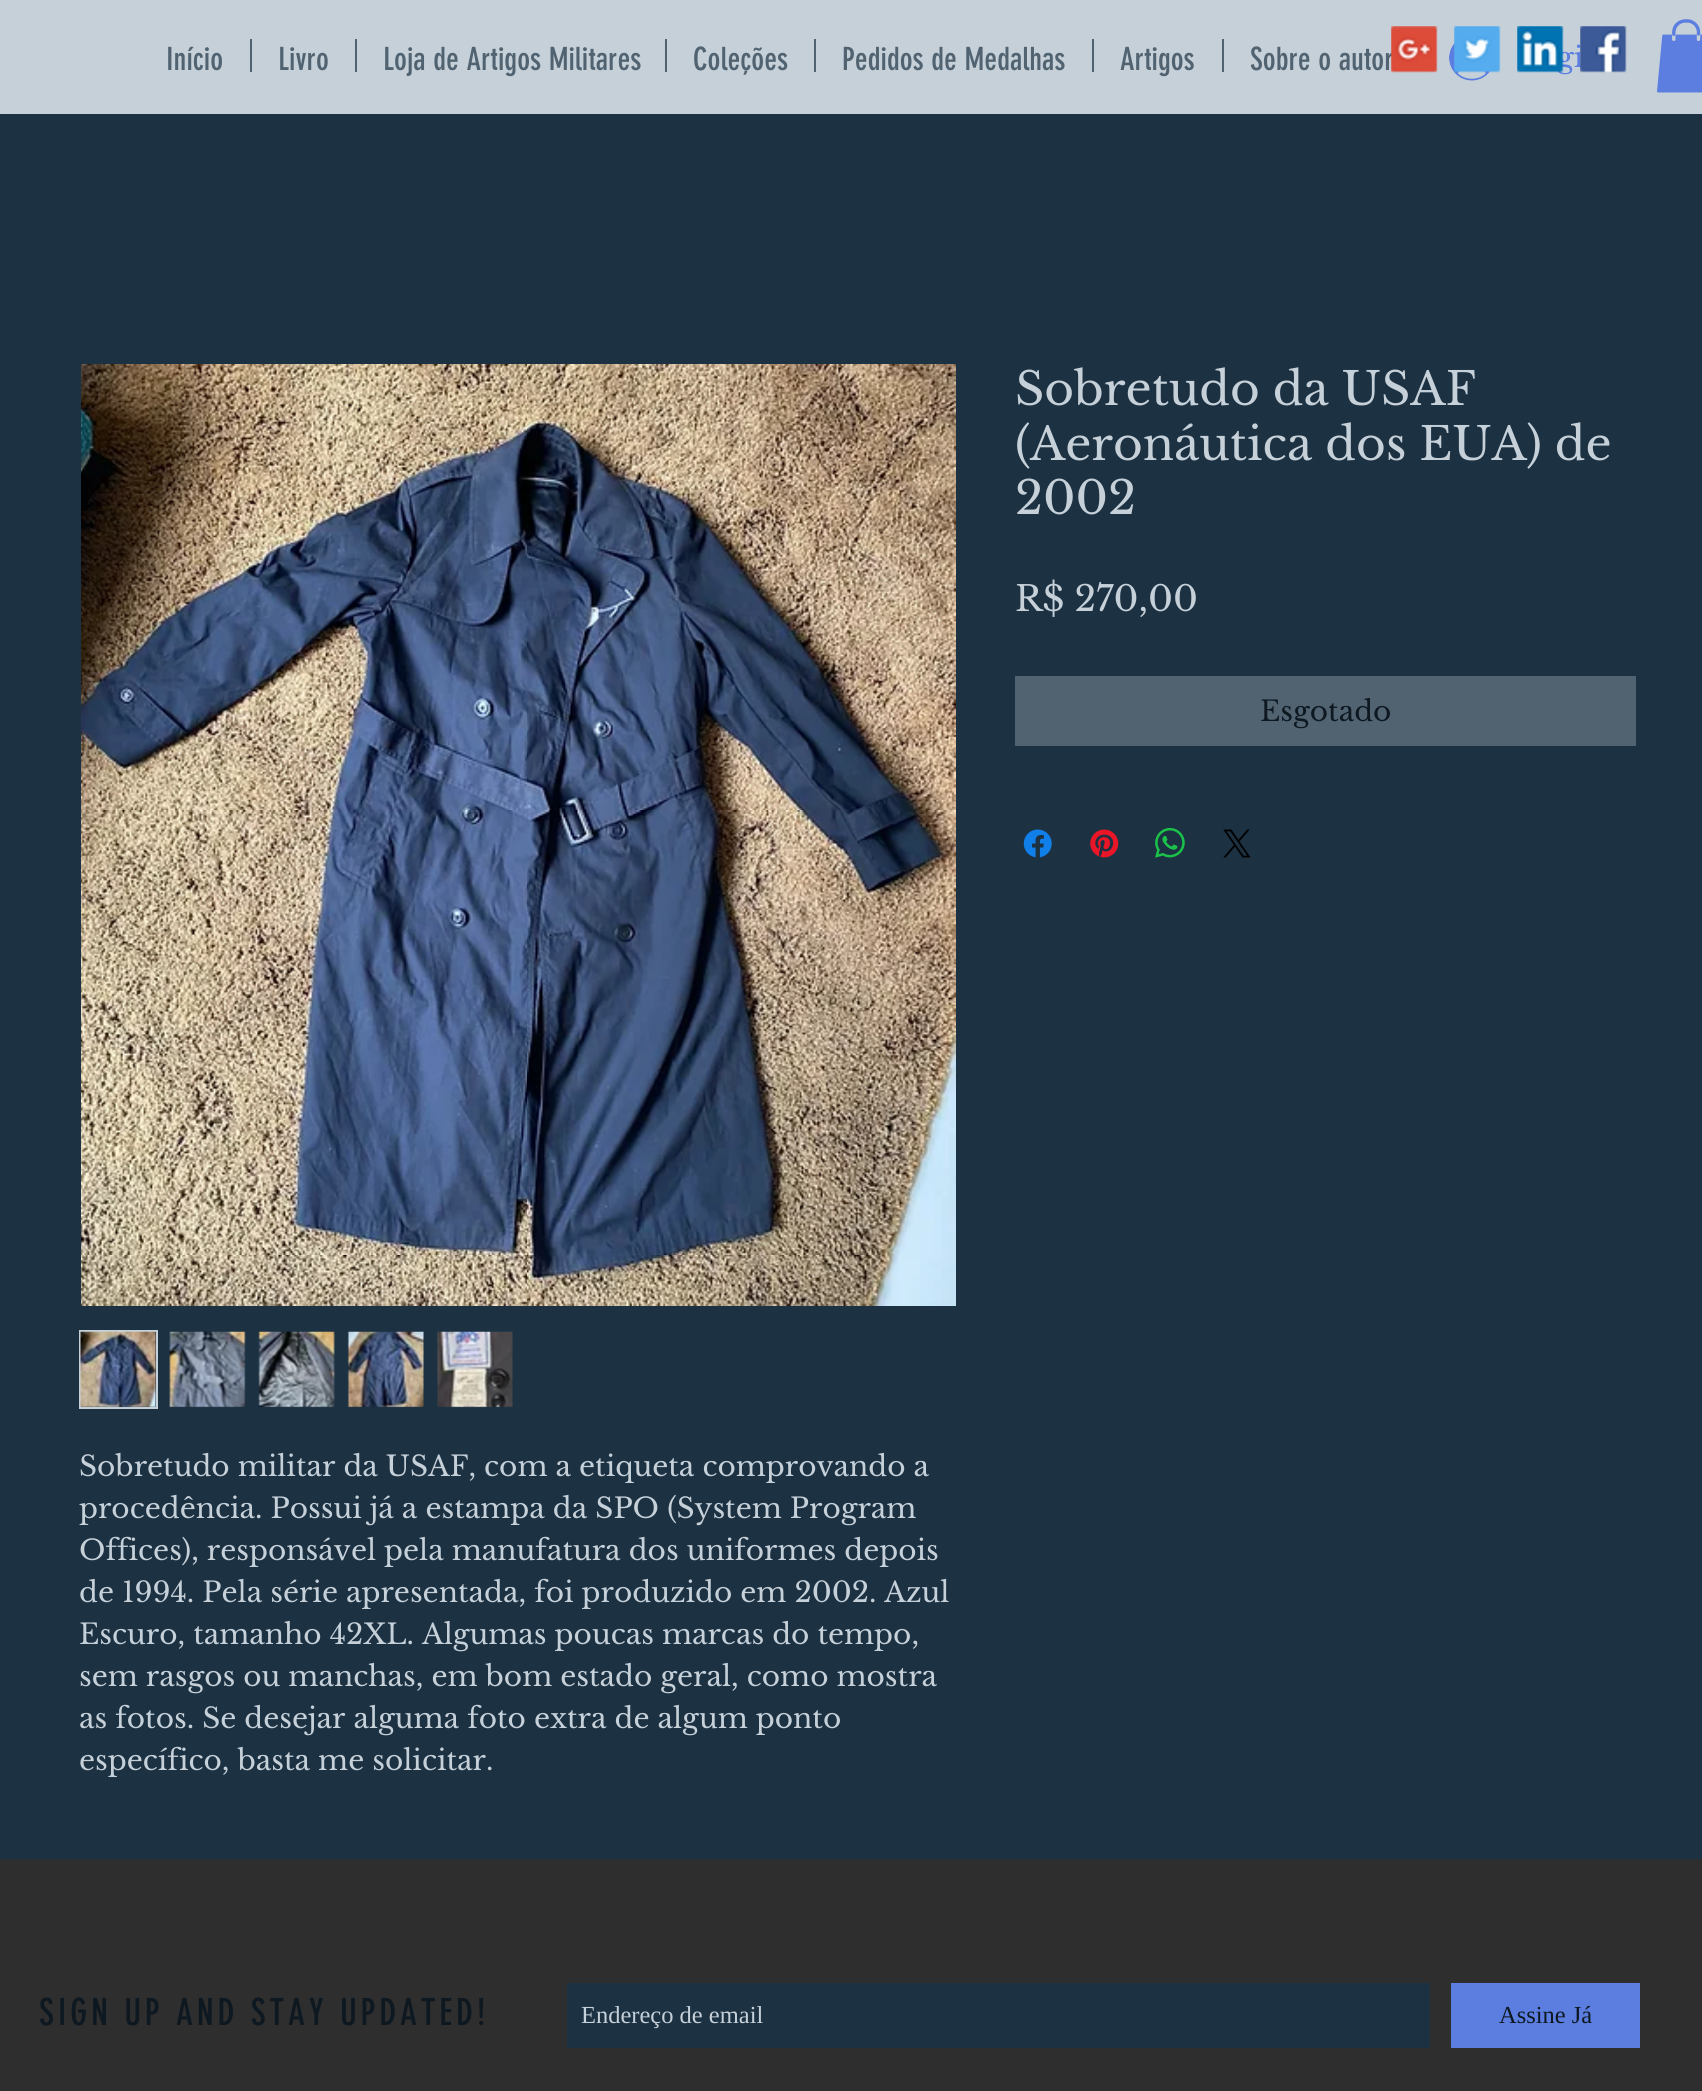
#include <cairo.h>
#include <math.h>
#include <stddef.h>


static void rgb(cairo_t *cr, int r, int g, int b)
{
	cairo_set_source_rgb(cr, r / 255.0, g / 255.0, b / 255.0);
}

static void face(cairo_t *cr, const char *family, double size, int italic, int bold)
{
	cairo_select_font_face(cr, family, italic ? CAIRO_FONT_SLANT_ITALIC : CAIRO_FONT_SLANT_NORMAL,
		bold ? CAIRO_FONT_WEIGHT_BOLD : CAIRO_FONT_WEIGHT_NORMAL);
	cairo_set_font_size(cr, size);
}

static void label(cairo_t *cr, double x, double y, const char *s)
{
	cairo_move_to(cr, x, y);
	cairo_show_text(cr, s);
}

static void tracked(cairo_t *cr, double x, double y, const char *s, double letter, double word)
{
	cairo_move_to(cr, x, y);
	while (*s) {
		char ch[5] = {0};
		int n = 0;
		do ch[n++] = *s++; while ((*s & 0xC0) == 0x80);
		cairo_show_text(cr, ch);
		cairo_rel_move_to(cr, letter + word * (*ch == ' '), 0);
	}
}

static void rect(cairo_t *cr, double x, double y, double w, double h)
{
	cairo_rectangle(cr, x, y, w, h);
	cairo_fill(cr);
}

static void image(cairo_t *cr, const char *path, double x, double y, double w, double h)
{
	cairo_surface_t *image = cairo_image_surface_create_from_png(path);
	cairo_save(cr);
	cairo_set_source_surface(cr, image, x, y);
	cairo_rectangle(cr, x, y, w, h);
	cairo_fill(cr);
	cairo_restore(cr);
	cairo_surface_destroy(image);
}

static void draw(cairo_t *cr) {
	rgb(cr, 28, 49, 66);
	cairo_paint(cr);
	rgb(cr, 197, 208, 217);
	rect(cr, 0, 0, 1702, 114);
	face(cr, "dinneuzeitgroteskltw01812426", 31.5, 0, 0);
	rgb(cr, 81, 99, 113);
	label(cr, 1250, 70, "Sobre o autor");
	image(cr, "image0.png", 1391, 26, 47, 47);
	image(cr, "image4.png", 1449, 43, 41, 38);
	image(cr, "image1.png", 1454, 26, 47, 47);
	face(cr, "Libre Baskerville", 28, 0, 0);
	rgb(cr, 91, 126, 224);
	label(cr, 1557, 67, "gi");
	image(cr, "image2.png", 1517, 26, 47, 47);
	image(cr, "image3.png", 1580, 26, 47, 47);
	face(cr, "dinneuzeitgroteskltw01812426", 31.5, 0, 0);
	rgb(cr, 81, 99, 113);
	label(cr, 166, 70, "Início");
	rect(cr, 250, 39, 2, 33);
	label(cr, 278, 70, "Livro");
	rect(cr, 355, 39, 2, 33);
	label(cr, 383, 70, "Loja de Artigos Militares");
	rect(cr, 665, 39, 2, 33);
	label(cr, 693, 70, "Coleções");
	rect(cr, 814, 39, 2, 33);
	label(cr, 842, 70, "Pedidos de Medalhas");
	rect(cr, 1092, 39, 2, 33);
	label(cr, 1120, 70, "Artigos");
	rect(cr, 1222, 39, 2, 33);
	image(cr, "image5.png", 1657, 19, 45, 74);
	face(cr, "Libre Baskerville", 45.5, 0, 0);
	rgb(cr, 197, 208, 217);
	label(cr, 1015, 405, "Sobretudo da USAF");
	label(cr, 1015, 460, "(Aeronáutica dos EUA) de");
	label(cr, 1015, 514, "2002");
	face(cr, "Libre Baskerville", 35, 0, 0);
	label(cr, 1015, 611, "R$ 270,00");
	rgb(cr, 81, 99, 113);
	rect(cr, 1015, 676, 621, 70);
	face(cr, "Libre Baskerville", 28, 0, 0);
	rgb(cr, 14, 24, 33);
	label(cr, 1260, 721, "Esgotado");
	image(cr, "image6.png", 1023, 829, 29, 29);
	image(cr, "image7.png", 1090, 829, 29, 29);
	image(cr, "image8.png", 1155, 827, 30, 31);
	image(cr, "image9.png", 1223, 829, 28, 29);
	image(cr, "image10.png", 81, 364, 875, 942);
	cairo_rectangle(cr, 80, 1331, 77, 77);
	rgb(cr, 197, 208, 217);
	cairo_stroke(cr);
	image(cr, "image11.png", 80, 1331, 77, 77);
	image(cr, "image12.png", 169, 1331, 77, 77);
	image(cr, "image13.png", 258, 1331, 77, 77);
	image(cr, "image14.png", 347, 1331, 77, 77);
	image(cr, "image15.png", 437, 1331, 76, 77);
	label(cr, 79, 1476, "Sobretudo militar da USAF, com a etiqueta comprovando a");
	label(cr, 79, 1518, "procedência. Possui já a estampa da SPO (System Program");
	label(cr, 79, 1560, "Offices), responsável pela manufatura dos uniformes depois");
	label(cr, 79, 1602, "de 1994. Pela série apresentada, foi produzido em 2002. Azul");
	label(cr, 79, 1644, "Escuro, tamanho 42XL. Algumas poucas marcas do tempo,");
	label(cr, 79, 1686, "sem rasgos ou manchas, em bom estado geral, como mostra");
	label(cr, 79, 1728, "as fotos. Se desejar alguma foto extra de algum ponto");
	label(cr, 79, 1770, "específico, basta me solicitar.");
	rgb(cr, 47, 46, 46);
	rect(cr, 0, 1859, 1702, 232);
	face(cr, "dinneuzeitgroteskltw01812426", 36.75, 0, 0);
	rgb(cr, 14, 24, 33);
	tracked(cr, 39, 2025, "SIGN UP AND STAY UPDATED!", 3.7, 0);
	rgb(cr, 28, 49, 66);
	rect(cr, 567, 1983, 863, 65);
	face(cr, "Liberation Serif", 24.5, 0, 0);
	rgb(cr, 197, 208, 217);
	label(cr, 581, 2023, "Endereço de email");
	rgb(cr, 91, 126, 224);
	rect(cr, 1451, 1983, 189, 65);
	rgb(cr, 14, 24, 33);
	label(cr, 1499, 2023, "Assine Já");
}

int main(void) {
	cairo_surface_t *surface = cairo_image_surface_create(CAIRO_FORMAT_RGB24, 1702, 2091);
	cairo_t *cr = cairo_create(surface);
	cairo_font_options_t *options = cairo_font_options_create();
	cairo_font_options_set_hint_metrics(options, CAIRO_HINT_METRICS_OFF);
	cairo_font_options_set_hint_style(options, CAIRO_HINT_STYLE_NONE);
	cairo_set_font_options(cr, options);
	cairo_set_miter_limit(cr, 4);
	draw(cr);
	cairo_surface_write_to_png(surface, "render.png");
	cairo_font_options_destroy(options);
	cairo_destroy(cr);
	cairo_surface_destroy(surface);
	return 0;
}
